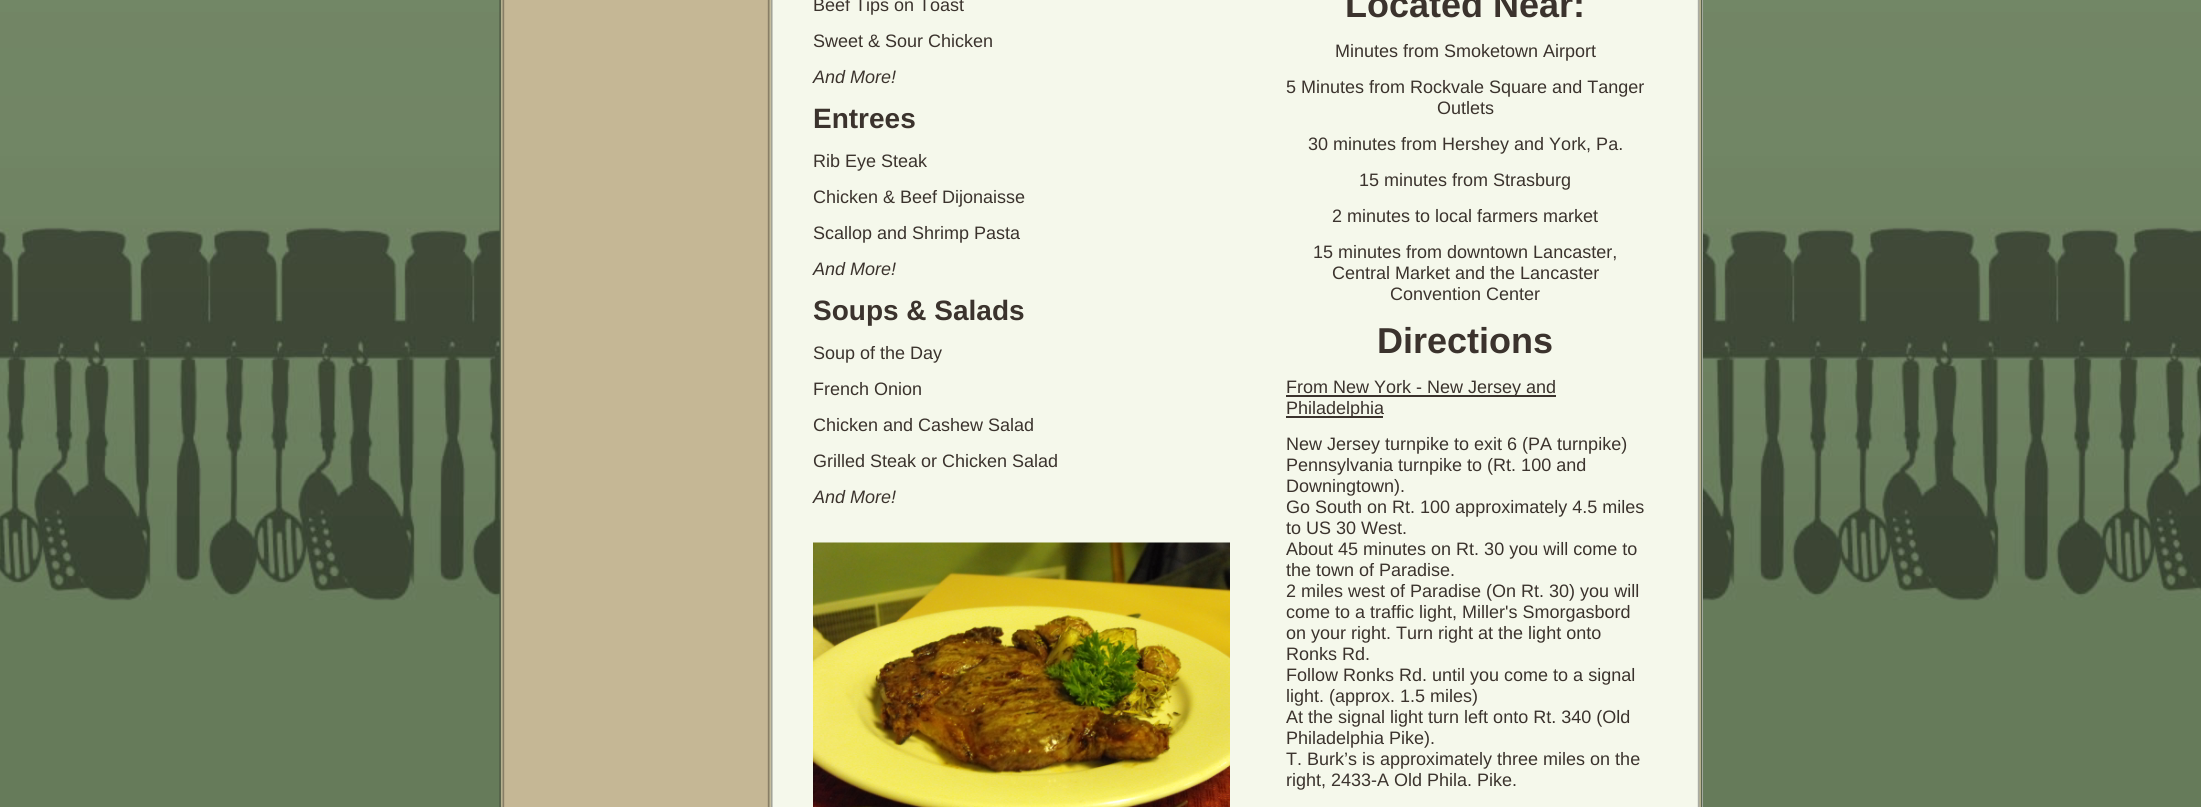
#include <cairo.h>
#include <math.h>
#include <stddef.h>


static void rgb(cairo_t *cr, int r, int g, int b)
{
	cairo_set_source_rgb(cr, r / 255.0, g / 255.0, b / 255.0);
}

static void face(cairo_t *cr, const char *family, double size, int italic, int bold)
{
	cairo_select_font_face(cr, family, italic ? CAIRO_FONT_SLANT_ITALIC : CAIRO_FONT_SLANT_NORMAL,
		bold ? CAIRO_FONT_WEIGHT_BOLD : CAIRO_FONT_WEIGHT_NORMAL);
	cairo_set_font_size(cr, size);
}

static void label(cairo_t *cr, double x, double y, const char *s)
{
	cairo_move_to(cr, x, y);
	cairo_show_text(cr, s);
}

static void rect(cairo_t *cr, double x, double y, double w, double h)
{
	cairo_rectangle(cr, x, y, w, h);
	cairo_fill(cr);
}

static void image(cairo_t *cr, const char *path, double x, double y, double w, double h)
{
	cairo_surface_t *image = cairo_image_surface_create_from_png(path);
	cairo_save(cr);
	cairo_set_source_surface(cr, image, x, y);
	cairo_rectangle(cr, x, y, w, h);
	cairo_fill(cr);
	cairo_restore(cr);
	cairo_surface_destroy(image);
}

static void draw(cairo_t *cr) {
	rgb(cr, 102, 123, 90);
	cairo_paint(cr);
	image(cr, "image0.png", 0, 0, 2201, 601);
	rgb(cr, 255, 255, 255);
	rect(cr, 1702, 0, 1, 807);
	image(cr, "image1.png", 499, 0, 1204, 807);
	face(cr, "Liberation Sans", 18, 0, 0);
	rgb(cr, 59, 51, 45);
	label(cr, 813, 11, "Beef Tips on Toast");
	label(cr, 813, 47, "Sweet & Sour Chicken");
	face(cr, "Liberation Sans", 18, 1, 0);
	label(cr, 813, 83, "And More!");
	face(cr, "Liberation Sans", 28, 0, 1);
	label(cr, 813, 128, "Entrees");
	face(cr, "Liberation Sans", 18, 0, 0);
	label(cr, 813, 167, "Rib Eye Steak");
	label(cr, 813, 203, "Chicken & Beef Dijonaisse");
	label(cr, 813, 239, "Scallop and Shrimp Pasta");
	face(cr, "Liberation Sans", 18, 1, 0);
	label(cr, 813, 275, "And More!");
	face(cr, "Liberation Sans", 28, 0, 1);
	label(cr, 813, 320, "Soups & Salads");
	face(cr, "Liberation Sans", 18, 0, 0);
	label(cr, 813, 359, "Soup of the Day");
	label(cr, 813, 395, "French Onion");
	label(cr, 813, 431, "Chicken and Cashew Salad");
	label(cr, 813, 467, "Grilled Steak or Chicken Salad");
	face(cr, "Liberation Sans", 18, 1, 0);
	label(cr, 813, 503, "And More!");
	image(cr, "image2.png", 813, 542, 417, 265);
	face(cr, "Liberation Sans", 36, 0, 1);
	label(cr, 1345, 17, "Located Near:");
	face(cr, "Liberation Sans", 18, 0, 0);
	label(cr, 1335, 57, "Minutes from Smoketown Airport");
	label(cr, 1286, 93, "5 Minutes from Rockvale Square and Tanger");
	label(cr, 1437, 114, "Outlets");
	label(cr, 1308, 150, "30 minutes from Hershey and York, Pa.");
	label(cr, 1359, 186, "15 minutes from Strasburg");
	label(cr, 1332, 222, "2 minutes to local farmers market");
	label(cr, 1313, 258, "15 minutes from downtown Lancaster,");
	label(cr, 1332, 279, "Central Market and the Lancaster");
	label(cr, 1390, 300, "Convention Center");
	face(cr, "Liberation Sans", 36, 0, 1);
	label(cr, 1377, 353, "Directions");
	rect(cr, 1286, 395, 270, 2);
	face(cr, "Liberation Sans", 18, 0, 0);
	label(cr, 1286, 393, "From New York - New Jersey and");
	rect(cr, 1286, 416, 97, 2);
	label(cr, 1286, 414, "Philadelphia");
	label(cr, 1286, 450, "New Jersey turnpike to exit 6 (PA turnpike)");
	label(cr, 1286, 471, "Pennsylvania turnpike to (Rt. 100 and");
	label(cr, 1286, 492, "Downingtown).");
	label(cr, 1286, 513, "Go South on Rt. 100 approximately 4.5 miles");
	label(cr, 1286, 534, "to US 30 West.");
	label(cr, 1286, 555, "About 45 minutes on Rt. 30 you will come to");
	label(cr, 1286, 576, "the town of Paradise.");
	label(cr, 1286, 597, "2 miles west of Paradise (On Rt. 30) you will");
	label(cr, 1286, 618, "come to a traffic light, Miller's Smorgasbord");
	label(cr, 1286, 639, "on your right. Turn right at the light onto");
	label(cr, 1286, 660, "Ronks Rd.");
	label(cr, 1286, 681, "Follow Ronks Rd. until you come to a signal");
	label(cr, 1286, 702, "light. (approx. 1.5 miles)");
	label(cr, 1286, 723, "At the signal light turn left onto Rt. 340 (Old");
	label(cr, 1286, 744, "Philadelphia Pike).");
	label(cr, 1286, 765, "T. Burk’s is approximately three miles on the");
	label(cr, 1286, 786, "right, 2433-A Old Phila. Pike.");
}

int main(void) {
	cairo_surface_t *surface = cairo_image_surface_create(CAIRO_FORMAT_RGB24, 2201, 807);
	cairo_t *cr = cairo_create(surface);
	cairo_font_options_t *options = cairo_font_options_create();
	cairo_font_options_set_hint_metrics(options, CAIRO_HINT_METRICS_OFF);
	cairo_font_options_set_hint_style(options, CAIRO_HINT_STYLE_NONE);
	cairo_set_font_options(cr, options);
	cairo_set_miter_limit(cr, 4);
	draw(cr);
	cairo_surface_write_to_png(surface, "render.png");
	cairo_font_options_destroy(options);
	cairo_destroy(cr);
	cairo_surface_destroy(surface);
	return 0;
}
